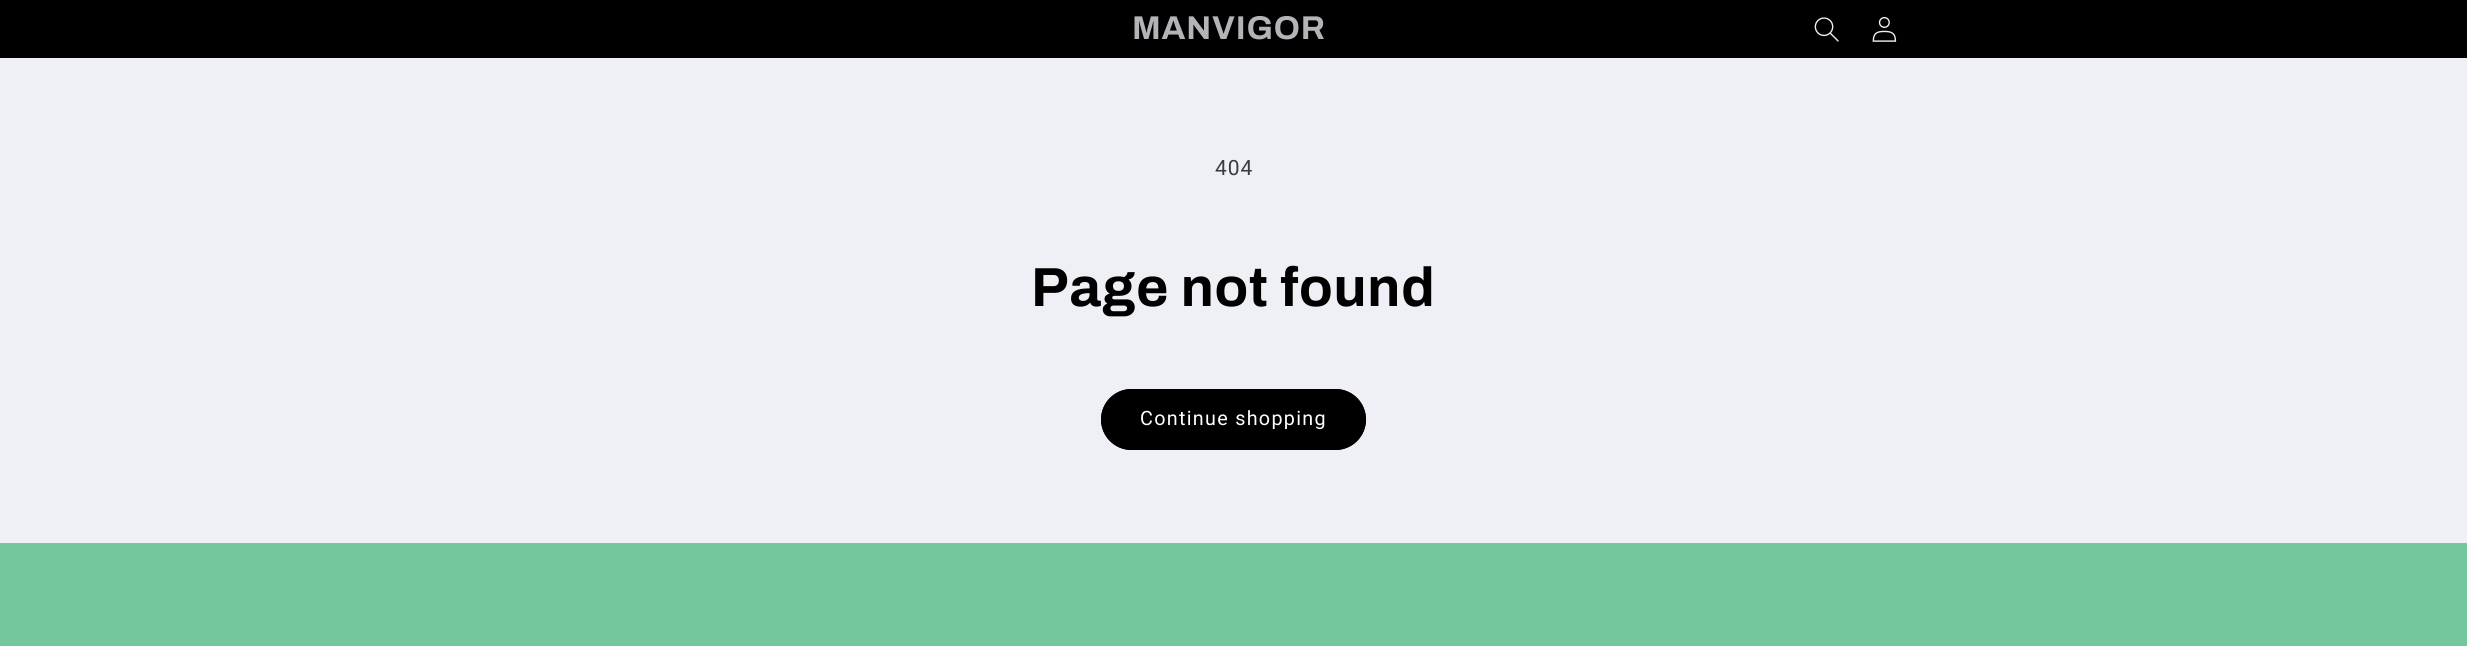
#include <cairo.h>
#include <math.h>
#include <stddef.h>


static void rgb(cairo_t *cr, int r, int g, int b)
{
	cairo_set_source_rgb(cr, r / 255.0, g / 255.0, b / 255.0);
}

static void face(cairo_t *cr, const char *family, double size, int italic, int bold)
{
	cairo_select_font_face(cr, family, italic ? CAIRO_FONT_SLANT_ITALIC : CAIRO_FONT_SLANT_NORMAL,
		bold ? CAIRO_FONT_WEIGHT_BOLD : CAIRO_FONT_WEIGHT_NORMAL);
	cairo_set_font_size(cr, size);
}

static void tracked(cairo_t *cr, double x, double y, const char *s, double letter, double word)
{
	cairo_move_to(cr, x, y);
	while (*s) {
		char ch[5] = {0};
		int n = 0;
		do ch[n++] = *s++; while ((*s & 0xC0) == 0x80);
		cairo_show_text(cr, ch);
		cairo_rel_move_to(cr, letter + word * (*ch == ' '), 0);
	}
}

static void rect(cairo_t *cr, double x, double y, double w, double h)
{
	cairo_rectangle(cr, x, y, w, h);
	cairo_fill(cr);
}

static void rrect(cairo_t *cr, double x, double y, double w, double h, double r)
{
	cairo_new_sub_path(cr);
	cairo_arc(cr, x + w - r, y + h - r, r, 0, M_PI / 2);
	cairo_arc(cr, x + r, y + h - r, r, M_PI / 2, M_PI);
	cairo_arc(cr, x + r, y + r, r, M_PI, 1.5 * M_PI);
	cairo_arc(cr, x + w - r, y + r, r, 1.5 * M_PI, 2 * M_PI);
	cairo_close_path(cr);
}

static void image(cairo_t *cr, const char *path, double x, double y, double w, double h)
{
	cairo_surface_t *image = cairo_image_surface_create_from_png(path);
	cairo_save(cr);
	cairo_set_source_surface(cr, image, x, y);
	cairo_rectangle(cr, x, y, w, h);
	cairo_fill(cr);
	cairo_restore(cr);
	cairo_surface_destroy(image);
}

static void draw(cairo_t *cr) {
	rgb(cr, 239, 240, 245);
	cairo_paint(cr);
	rgb(cr, 0, 0, 0);
	rect(cr, 0, 0, 2467, 58);
	face(cr, "Archivo", 33, 0, 1);
	rgb(cr, 179, 180, 184);
	tracked(cr, 1132, 39, "MANVIGOR", 0.8, 0);
	image(cr, "image0.png", 1814, 17, 25, 25);
	image(cr, "image1.png", 1872, 16, 25, 26);
	face(cr, "Roboto", 21, 0, 0);
	rgb(cr, 60, 60, 61);
	tracked(cr, 1215, 175, "404", 1, 0);
	face(cr, "Archivo", 55, 0, 1);
	rgb(cr, 0, 0, 0);
	tracked(cr, 1031, 306, "Page not found", 0.8, 0);
	rrect(cr, 1101, 389, 265, 61, 30.5);
	cairo_fill(cr);
	rrect(cr, 1101.5, 389.5, 264, 60, 30);
	cairo_set_line_width(cr, 1);
	cairo_stroke(cr);
	face(cr, "Roboto", 19.75, 0, 0);
	rgb(cr, 255, 255, 255);
	tracked(cr, 1140, 425, "Continue shopping", 1.3, 0);
	rgb(cr, 116, 198, 157);
	rect(cr, 0, 543, 2467, 103);
}

int main(void) {
	cairo_surface_t *surface = cairo_image_surface_create(CAIRO_FORMAT_RGB24, 2467, 646);
	cairo_t *cr = cairo_create(surface);
	cairo_font_options_t *options = cairo_font_options_create();
	cairo_font_options_set_hint_metrics(options, CAIRO_HINT_METRICS_OFF);
	cairo_font_options_set_hint_style(options, CAIRO_HINT_STYLE_NONE);
	cairo_set_font_options(cr, options);
	cairo_set_miter_limit(cr, 4);
	draw(cr);
	cairo_surface_write_to_png(surface, "render.png");
	cairo_font_options_destroy(options);
	cairo_destroy(cr);
	cairo_surface_destroy(surface);
	return 0;
}
